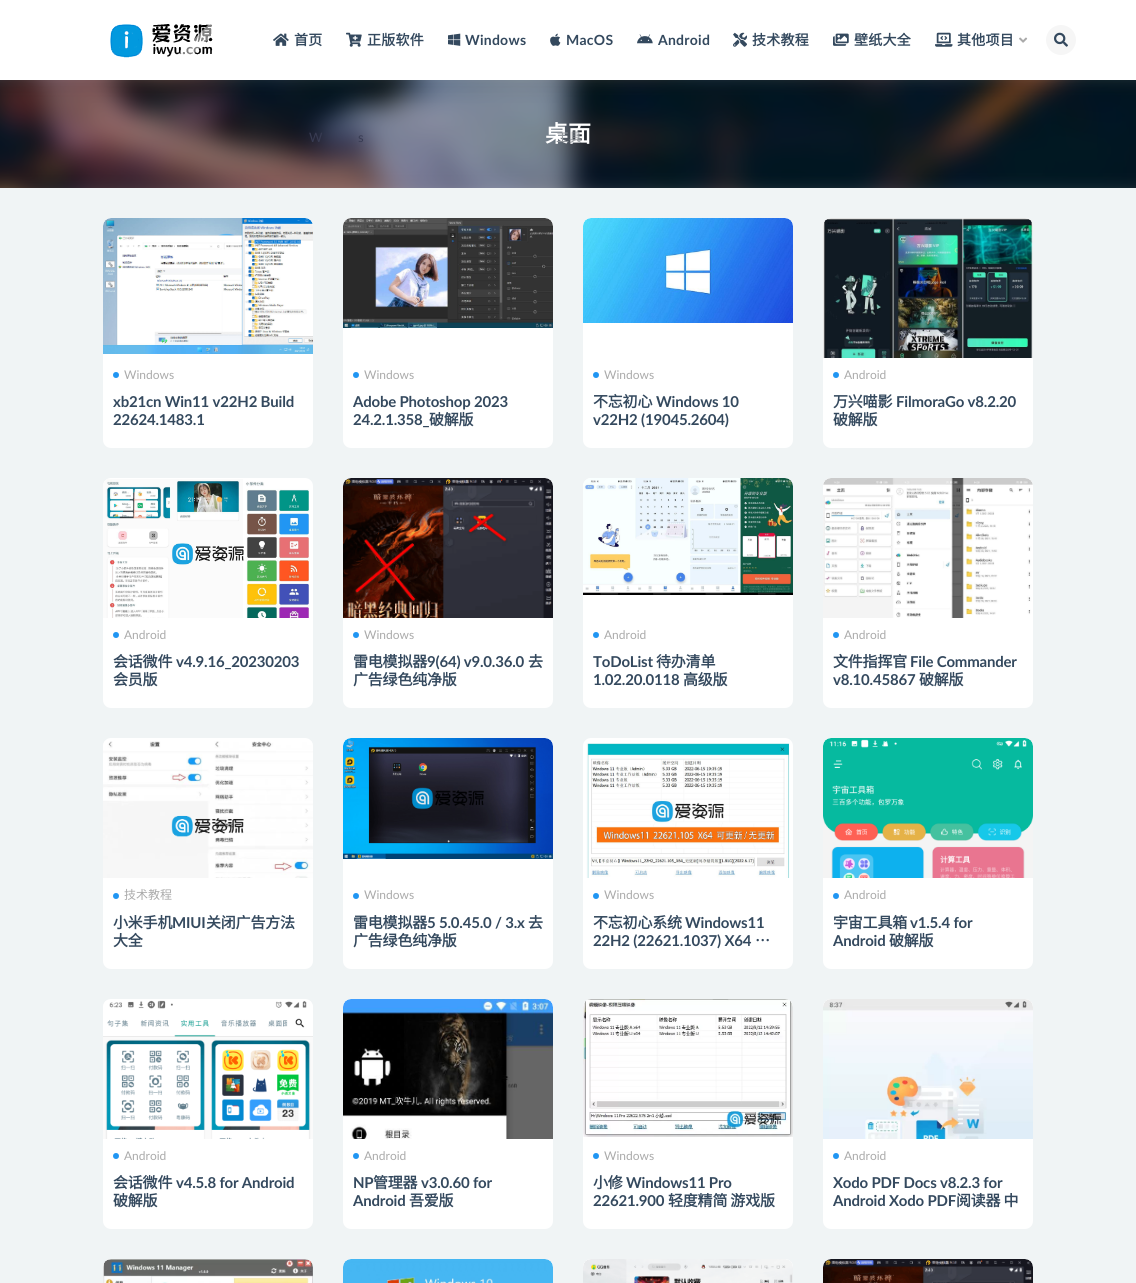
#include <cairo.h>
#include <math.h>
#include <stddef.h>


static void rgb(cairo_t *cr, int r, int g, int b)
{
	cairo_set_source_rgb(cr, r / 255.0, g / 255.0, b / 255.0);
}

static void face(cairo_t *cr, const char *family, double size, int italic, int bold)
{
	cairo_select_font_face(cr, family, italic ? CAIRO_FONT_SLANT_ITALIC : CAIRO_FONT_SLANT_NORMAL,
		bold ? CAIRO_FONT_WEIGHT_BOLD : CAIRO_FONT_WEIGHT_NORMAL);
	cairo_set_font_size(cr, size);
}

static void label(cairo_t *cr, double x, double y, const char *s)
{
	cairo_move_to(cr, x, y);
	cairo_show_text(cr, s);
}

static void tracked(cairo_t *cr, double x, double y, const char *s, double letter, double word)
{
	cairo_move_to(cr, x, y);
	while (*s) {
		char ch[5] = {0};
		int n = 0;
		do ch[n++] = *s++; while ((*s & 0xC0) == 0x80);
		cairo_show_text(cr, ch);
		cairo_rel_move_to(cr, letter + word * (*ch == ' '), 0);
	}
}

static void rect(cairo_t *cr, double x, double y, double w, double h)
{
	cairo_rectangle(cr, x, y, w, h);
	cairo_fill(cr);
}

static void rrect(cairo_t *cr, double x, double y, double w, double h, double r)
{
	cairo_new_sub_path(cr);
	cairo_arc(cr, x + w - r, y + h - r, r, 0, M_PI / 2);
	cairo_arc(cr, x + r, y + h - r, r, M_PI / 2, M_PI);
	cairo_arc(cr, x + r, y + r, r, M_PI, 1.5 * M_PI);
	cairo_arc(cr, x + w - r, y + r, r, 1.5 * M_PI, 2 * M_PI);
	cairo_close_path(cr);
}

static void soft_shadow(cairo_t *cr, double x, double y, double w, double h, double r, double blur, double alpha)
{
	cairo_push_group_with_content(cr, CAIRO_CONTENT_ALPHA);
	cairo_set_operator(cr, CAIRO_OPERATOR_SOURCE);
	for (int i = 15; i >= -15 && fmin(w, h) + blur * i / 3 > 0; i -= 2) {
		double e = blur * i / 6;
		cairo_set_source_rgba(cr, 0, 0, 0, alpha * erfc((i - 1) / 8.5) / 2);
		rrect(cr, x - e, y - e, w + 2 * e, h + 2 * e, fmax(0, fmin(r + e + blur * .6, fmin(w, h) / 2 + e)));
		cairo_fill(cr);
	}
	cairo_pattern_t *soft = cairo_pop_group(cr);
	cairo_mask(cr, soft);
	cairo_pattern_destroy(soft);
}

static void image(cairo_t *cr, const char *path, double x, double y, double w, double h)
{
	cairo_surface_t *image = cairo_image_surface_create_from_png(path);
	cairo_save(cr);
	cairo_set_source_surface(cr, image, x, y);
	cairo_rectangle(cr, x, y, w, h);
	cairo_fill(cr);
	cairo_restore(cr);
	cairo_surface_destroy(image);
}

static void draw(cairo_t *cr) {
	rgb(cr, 240, 244, 245);
	cairo_paint(cr);
	image(cr, "image11.png", 0, 80, 1136, 108);
	rgb(cr, 0, 0, 0);
	soft_shadow(cr, 0, 0, 1136, 80, 0, 15, 0.07);
	cairo_save(cr);
	cairo_rectangle(cr, 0, 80, 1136, 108);
	cairo_clip(cr);
	soft_shadow(cr, -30, 64, 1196, 140, 0, 10, 0.3);
	cairo_restore(cr);
	rgb(cr, 255, 255, 255);
	rect(cr, 0, 0, 1136, 80);
	image(cr, "image0.png", 110, 24, 103, 34);
	cairo_save(cr);
	cairo_rectangle(cr, 103, 23, 120, 35);
	cairo_clip(cr);
	cairo_set_source_rgba(cr, 1, 1, 1, 0.5);
	cairo_new_path(cr);
	cairo_move_to(cr, 121, 112);
	cairo_line_to(cr, 227, 6);
	cairo_line_to(cr, 235, 13);
	cairo_line_to(cr, 129, 119);
	cairo_close_path(cr);
	cairo_fill(cr);
	cairo_restore(cr);
	image(cr, "image1.png", 273, 33, 16, 13);
	face(cr, "Noto Sans CJK SC", 14, 0, 1);
	rgb(cr, 52, 73, 94);
	tracked(cr, 294, 45, "首页", 0.25, 0);
	image(cr, "image2.png", 346, 32, 16, 15);
	tracked(cr, 367, 45, "正版软件", 0.25, 0);
	image(cr, "image3.png", 448, 33, 13, 13);
	face(cr, "Lato", 14, 0, 1);
	tracked(cr, 465, 45, "Windows", 0.25, 0);
	image(cr, "image4.png", 550, 33, 11, 13);
	tracked(cr, 566, 45, "MacOS", 0.25, 0);
	image(cr, "image5.png", 637, 34, 16, 10);
	tracked(cr, 658, 45, "Android", 0.25, 0);
	image(cr, "image6.png", 733, 32, 14, 15);
	face(cr, "Noto Sans CJK SC", 14, 0, 1);
	tracked(cr, 752, 45, "技术教程", 0.25, 0);
	image(cr, "image7.png", 833, 33, 16, 13);
	tracked(cr, 854, 45, "壁纸大全", 0.25, 0);
	image(cr, "image8.png", 935, 32, 18, 15);
	tracked(cr, 957, 45, "其他项目", 0.25, 0);
	image(cr, "image9.png", 1019, 37, 9, 6);
	rgb(cr, 246, 246, 246);
	cairo_arc(cr, 1061, 40, 15, 0, 2 * M_PI);
	cairo_fill(cr);
	image(cr, "image10.png", 1054, 32, 14, 15);
	face(cr, "Noto Sans CJK SC", 23, 0, 1);
	rgb(cr, 255, 255, 255);
	label(cr, 545, 142, "桌面");
	rrect(cr, 103, 218, 210, 230, 8);
	cairo_fill(cr);
	image(cr, "image12.png", 103, 218, 210, 136);
	rgb(cr, 33, 150, 243);
	cairo_arc(cr, 116, 375, 3, 0, 2 * M_PI);
	cairo_fill(cr);
	face(cr, "Lato", 12, 0, 0);
	rgb(cr, 170, 170, 170);
	label(cr, 124, 379, "Windows");
	face(cr, "Lato", 15, 0, 1);
	rgb(cr, 52, 73, 94);
	tracked(cr, 113, 407, "xb21cn Win11 v22H2 Build", -0.2, 0);
	tracked(cr, 113, 425, "22624.1483.1", -0.2, 0);
	rgb(cr, 255, 255, 255);
	rrect(cr, 343, 218, 210, 230, 8);
	cairo_fill(cr);
	image(cr, "image13.png", 343, 218, 210, 110);
	rgb(cr, 33, 150, 243);
	cairo_arc(cr, 356, 375, 3, 0, 2 * M_PI);
	cairo_fill(cr);
	face(cr, "Lato", 12, 0, 0);
	rgb(cr, 170, 170, 170);
	label(cr, 364, 379, "Windows");
	face(cr, "Lato", 15, 0, 1);
	rgb(cr, 52, 73, 94);
	tracked(cr, 353, 407, "Adobe Photoshop 2023", -0.2, 0);
	tracked(cr, 353, 425, "24.2.1.358_", -0.2, 0);
	face(cr, "Noto Sans CJK SC", 15, 0, 1);
	tracked(cr, 429, 425, "破解版", -0.2, 0);
	rgb(cr, 255, 255, 255);
	rrect(cr, 583, 218, 210, 230, 8);
	cairo_fill(cr);
	image(cr, "image14.png", 583, 218, 210, 105);
	rgb(cr, 33, 150, 243);
	cairo_arc(cr, 596, 375, 3, 0, 2 * M_PI);
	cairo_fill(cr);
	face(cr, "Lato", 12, 0, 0);
	rgb(cr, 170, 170, 170);
	label(cr, 604, 379, "Windows");
	face(cr, "Noto Sans CJK SC", 15, 0, 1);
	rgb(cr, 52, 73, 94);
	tracked(cr, 593, 407, "不忘初心", -0.2, 0);
	face(cr, "Lato", 15, 0, 1);
	tracked(cr, 656, 407, "Windows 10", -0.2, 0);
	tracked(cr, 593, 425, "v22H2 (19045.2604)", -0.2, 0);
	rgb(cr, 255, 255, 255);
	rrect(cr, 823, 218, 210, 230, 8);
	cairo_fill(cr);
	image(cr, "image15.png", 823, 218, 210, 140);
	rgb(cr, 33, 150, 243);
	cairo_arc(cr, 836, 375, 3, 0, 2 * M_PI);
	cairo_fill(cr);
	face(cr, "Lato", 12, 0, 0);
	rgb(cr, 170, 170, 170);
	label(cr, 844, 379, "Android");
	face(cr, "Noto Sans CJK SC", 15, 0, 1);
	rgb(cr, 52, 73, 94);
	tracked(cr, 833, 407, "万兴喵影", -0.2, 0);
	face(cr, "Lato", 15, 0, 1);
	tracked(cr, 896, 407, "FilmoraGo v8.2.20", -0.2, 0);
	face(cr, "Noto Sans CJK SC", 15, 0, 1);
	tracked(cr, 833, 425, "破解版", -0.2, 0);
	rgb(cr, 255, 255, 255);
	rrect(cr, 103, 478, 210, 230, 8);
	cairo_fill(cr);
	image(cr, "image16.png", 103, 479, 206, 139);
	rgb(cr, 33, 150, 243);
	cairo_arc(cr, 116, 635, 3, 0, 2 * M_PI);
	cairo_fill(cr);
	face(cr, "Lato", 12, 0, 0);
	rgb(cr, 170, 170, 170);
	label(cr, 124, 639, "Android");
	face(cr, "Noto Sans CJK SC", 15, 0, 1);
	rgb(cr, 52, 73, 94);
	tracked(cr, 113, 667, "会话微件", -0.2, 0);
	face(cr, "Lato", 15, 0, 1);
	tracked(cr, 176, 667, "v4.9.16_20230203", -0.2, 0);
	face(cr, "Noto Sans CJK SC", 15, 0, 1);
	tracked(cr, 113, 685, "会员版", -0.2, 0);
	rgb(cr, 255, 255, 255);
	rrect(cr, 343, 478, 210, 230, 8);
	cairo_fill(cr);
	image(cr, "image17.png", 343, 478, 210, 140);
	rgb(cr, 33, 150, 243);
	cairo_arc(cr, 356, 635, 3, 0, 2 * M_PI);
	cairo_fill(cr);
	face(cr, "Lato", 12, 0, 0);
	rgb(cr, 170, 170, 170);
	label(cr, 364, 639, "Windows");
	face(cr, "Noto Sans CJK SC", 15, 0, 1);
	rgb(cr, 52, 73, 94);
	tracked(cr, 353, 667, "雷电模拟器", -0.2, 0);
	face(cr, "Lato", 15, 0, 1);
	tracked(cr, 427, 667, "9(64) v9.0.36.0", -0.2, 0);
	face(cr, "Noto Sans CJK SC", 15, 0, 1);
	tracked(cr, 528, 667, "去", -0.2, 0);
	tracked(cr, 353, 685, "广告绿色纯净版", -0.2, 0);
	rgb(cr, 255, 255, 255);
	rrect(cr, 583, 478, 210, 230, 8);
	cairo_fill(cr);
	image(cr, "image18.png", 583, 478, 210, 117);
	rgb(cr, 33, 150, 243);
	cairo_arc(cr, 596, 635, 3, 0, 2 * M_PI);
	cairo_fill(cr);
	face(cr, "Lato", 12, 0, 0);
	rgb(cr, 170, 170, 170);
	label(cr, 604, 639, "Android");
	face(cr, "Lato", 15, 0, 1);
	rgb(cr, 52, 73, 94);
	tracked(cr, 593, 667, "ToDoList", -0.2, 0);
	face(cr, "Noto Sans CJK SC", 15, 0, 1);
	tracked(cr, 656, 667, "待办清单", -0.2, 0);
	face(cr, "Lato", 15, 0, 1);
	tracked(cr, 593, 685, "1.02.20.0118", -0.2, 0);
	face(cr, "Noto Sans CJK SC", 15, 0, 1);
	tracked(cr, 683, 685, "高级版", -0.2, 0);
	rgb(cr, 255, 255, 255);
	rrect(cr, 823, 478, 210, 230, 8);
	cairo_fill(cr);
	image(cr, "image19.png", 823, 478, 210, 140);
	rgb(cr, 33, 150, 243);
	cairo_arc(cr, 836, 635, 3, 0, 2 * M_PI);
	cairo_fill(cr);
	face(cr, "Lato", 12, 0, 0);
	rgb(cr, 170, 170, 170);
	label(cr, 844, 639, "Android");
	face(cr, "Noto Sans CJK SC", 15, 0, 1);
	rgb(cr, 52, 73, 94);
	tracked(cr, 833, 667, "文件指挥官", -0.2, 0);
	face(cr, "Lato", 15, 0, 1);
	tracked(cr, 910, 667, "File Commander", -0.2, 0);
	tracked(cr, 833, 685, "v8.10.45867", -0.2, 0);
	face(cr, "Noto Sans CJK SC", 15, 0, 1);
	tracked(cr, 919, 685, "破解版", -0.2, 0);
	rgb(cr, 255, 255, 255);
	rrect(cr, 103, 738, 210, 231, 8);
	cairo_fill(cr);
	image(cr, "image20.png", 103, 741, 210, 137);
	rgb(cr, 33, 150, 243);
	cairo_arc(cr, 116, 896, 3, 0, 2 * M_PI);
	cairo_fill(cr);
	face(cr, "Noto Sans CJK SC", 12, 0, 0);
	rgb(cr, 170, 170, 170);
	label(cr, 124, 899, "技术教程");
	face(cr, "Noto Sans CJK SC", 15, 0, 1);
	rgb(cr, 52, 73, 94);
	tracked(cr, 113, 928, "小米手机", -0.2, 0);
	face(cr, "Lato", 15, 0, 1);
	tracked(cr, 172, 928, "MIUI", -0.2, 0);
	face(cr, "Noto Sans CJK SC", 15, 0, 1);
	tracked(cr, 206, 928, "关闭广告方法", -0.2, 0);
	tracked(cr, 113, 946, "大全", -0.2, 0);
	rgb(cr, 255, 255, 255);
	rrect(cr, 343, 738, 210, 231, 8);
	cairo_fill(cr);
	image(cr, "image21.png", 343, 738, 210, 121);
	rgb(cr, 33, 150, 243);
	cairo_arc(cr, 356, 896, 3, 0, 2 * M_PI);
	cairo_fill(cr);
	face(cr, "Lato", 12, 0, 0);
	rgb(cr, 170, 170, 170);
	label(cr, 364, 899, "Windows");
	face(cr, "Noto Sans CJK SC", 15, 0, 1);
	rgb(cr, 52, 73, 94);
	tracked(cr, 353, 928, "雷电模拟器", -0.2, 0);
	face(cr, "Lato", 15, 0, 1);
	tracked(cr, 427, 928, "5 5.0.45.0 / 3.x", -0.2, 0);
	face(cr, "Noto Sans CJK SC", 15, 0, 1);
	tracked(cr, 528, 928, "去", -0.2, 0);
	tracked(cr, 353, 946, "广告绿色纯净版", -0.2, 0);
	rgb(cr, 255, 255, 255);
	rrect(cr, 583, 738, 210, 231, 8);
	cairo_fill(cr);
	image(cr, "image22.png", 586, 743, 204, 135);
	rgb(cr, 33, 150, 243);
	cairo_arc(cr, 596, 896, 3, 0, 2 * M_PI);
	cairo_fill(cr);
	face(cr, "Lato", 12, 0, 0);
	rgb(cr, 170, 170, 170);
	label(cr, 604, 899, "Windows");
	face(cr, "Noto Sans CJK SC", 15, 0, 1);
	rgb(cr, 52, 73, 94);
	tracked(cr, 593, 928, "不忘初心系统", -0.2, 0);
	face(cr, "Lato", 15, 0, 1);
	tracked(cr, 685, 928, "Windows11", -0.2, 0);
	tracked(cr, 593, 946, "22H2 (22621.1037) X64", -0.2, 0);
	face(cr, "Noto Sans CJK SC", 15, 0, 1);
	tracked(cr, 755, 946, "…", -0.2, 0);
	rgb(cr, 255, 255, 255);
	rrect(cr, 823, 738, 210, 231, 8);
	cairo_fill(cr);
	image(cr, "image23.png", 823, 738, 210, 140);
	rgb(cr, 33, 150, 243);
	cairo_arc(cr, 836, 896, 3, 0, 2 * M_PI);
	cairo_fill(cr);
	face(cr, "Lato", 12, 0, 0);
	rgb(cr, 170, 170, 170);
	label(cr, 844, 899, "Android");
	face(cr, "Noto Sans CJK SC", 15, 0, 1);
	rgb(cr, 52, 73, 94);
	tracked(cr, 833, 928, "宇宙工具箱", -0.2, 0);
	face(cr, "Lato", 15, 0, 1);
	tracked(cr, 910, 928, "v1.5.4 for", -0.2, 0);
	tracked(cr, 833, 946, "Android", -0.2, 0);
	face(cr, "Noto Sans CJK SC", 15, 0, 1);
	tracked(cr, 889, 946, "破解版", -0.2, 0);
	rgb(cr, 255, 255, 255);
	rrect(cr, 103, 999, 210, 230, 8);
	cairo_fill(cr);
	image(cr, "image24.png", 103, 1000, 210, 139);
	rgb(cr, 33, 150, 243);
	cairo_arc(cr, 116, 1156, 3, 0, 2 * M_PI);
	cairo_fill(cr);
	face(cr, "Lato", 12, 0, 0);
	rgb(cr, 170, 170, 170);
	label(cr, 124, 1160, "Android");
	face(cr, "Noto Sans CJK SC", 15, 0, 1);
	rgb(cr, 52, 73, 94);
	tracked(cr, 113, 1188, "会话微件", -0.2, 0);
	face(cr, "Lato", 15, 0, 1);
	tracked(cr, 176, 1188, "v4.5.8 for Android", -0.2, 0);
	face(cr, "Noto Sans CJK SC", 15, 0, 1);
	tracked(cr, 113, 1206, "破解版", -0.2, 0);
	rgb(cr, 255, 255, 255);
	rrect(cr, 343, 999, 210, 230, 8);
	cairo_fill(cr);
	image(cr, "image25.png", 343, 999, 210, 140);
	rgb(cr, 33, 150, 243);
	cairo_arc(cr, 356, 1156, 3, 0, 2 * M_PI);
	cairo_fill(cr);
	face(cr, "Lato", 12, 0, 0);
	rgb(cr, 170, 170, 170);
	label(cr, 364, 1160, "Android");
	face(cr, "Lato", 15, 0, 1);
	rgb(cr, 52, 73, 94);
	tracked(cr, 353, 1188, "NP", -0.2, 0);
	face(cr, "Noto Sans CJK SC", 15, 0, 1);
	tracked(cr, 373, 1188, "管理器", -0.2, 0);
	face(cr, "Lato", 15, 0, 1);
	tracked(cr, 421, 1188, "v3.0.60 for", -0.2, 0);
	tracked(cr, 353, 1206, "Android", -0.2, 0);
	face(cr, "Noto Sans CJK SC", 15, 0, 1);
	tracked(cr, 409, 1206, "吾爱版", -0.2, 0);
	rgb(cr, 255, 255, 255);
	rrect(cr, 583, 999, 210, 230, 8);
	cairo_fill(cr);
	image(cr, "image26.png", 583, 999, 210, 138);
	rgb(cr, 33, 150, 243);
	cairo_arc(cr, 596, 1156, 3, 0, 2 * M_PI);
	cairo_fill(cr);
	face(cr, "Lato", 12, 0, 0);
	rgb(cr, 170, 170, 170);
	label(cr, 604, 1160, "Windows");
	face(cr, "Noto Sans CJK SC", 15, 0, 1);
	rgb(cr, 52, 73, 94);
	tracked(cr, 593, 1188, "小修", -0.2, 0);
	face(cr, "Lato", 15, 0, 1);
	tracked(cr, 626, 1188, "Windows11 Pro", -0.2, 0);
	tracked(cr, 593, 1206, "22621.900", -0.2, 0);
	face(cr, "Noto Sans CJK SC", 15, 0, 1);
	tracked(cr, 668, 1206, "轻度精简 游戏版", -0.2, 0);
	rgb(cr, 255, 255, 255);
	rrect(cr, 823, 999, 210, 230, 8);
	cairo_fill(cr);
	image(cr, "image27.png", 823, 999, 210, 140);
	rgb(cr, 33, 150, 243);
	cairo_arc(cr, 836, 1156, 3, 0, 2 * M_PI);
	cairo_fill(cr);
	face(cr, "Lato", 12, 0, 0);
	rgb(cr, 170, 170, 170);
	label(cr, 844, 1160, "Android");
	face(cr, "Lato", 15, 0, 1);
	rgb(cr, 52, 73, 94);
	tracked(cr, 833, 1188, "Xodo PDF Docs v8.2.3 for", -0.2, 0);
	tracked(cr, 833, 1206, "Android Xodo PDF", -0.2, 0);
	face(cr, "Noto Sans CJK SC", 15, 0, 1);
	tracked(cr, 956, 1206, "阅读器 中", -0.2, 0);
	rgb(cr, 255, 255, 255);
	rrect(cr, 103, 1259, 210, 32, 8);
	cairo_fill(cr);
	image(cr, "image28.png", 103, 1259, 210, 24);
	rrect(cr, 343, 1259, 210, 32, 8);
	cairo_fill(cr);
	image(cr, "image29.png", 343, 1259, 210, 24);
	rrect(cr, 583, 1259, 210, 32, 8);
	cairo_fill(cr);
	image(cr, "image30.png", 583, 1259, 210, 24);
	rrect(cr, 823, 1259, 210, 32, 8);
	cairo_fill(cr);
	image(cr, "image31.png", 823, 1259, 210, 24);
	face(cr, "Lato", 13, 0, 0);
	rgb(cr, 56, 59, 82);
	label(cr, 309, 142, "W");
	label(cr, 358, 142, "s");
	face(cr, "Noto Sans CJK SC", 13, 0, 0);
	rgb(cr, 147, 151, 156);
	label(cr, 556, 142, "工具");
}

int main(void) {
	cairo_surface_t *surface = cairo_image_surface_create(CAIRO_FORMAT_RGB24, 1136, 1283);
	cairo_t *cr = cairo_create(surface);
	cairo_font_options_t *options = cairo_font_options_create();
	cairo_font_options_set_hint_metrics(options, CAIRO_HINT_METRICS_OFF);
	cairo_font_options_set_hint_style(options, CAIRO_HINT_STYLE_NONE);
	cairo_set_font_options(cr, options);
	cairo_set_miter_limit(cr, 4);
	draw(cr);
	cairo_surface_write_to_png(surface, "render.png");
	cairo_font_options_destroy(options);
	cairo_destroy(cr);
	cairo_surface_destroy(surface);
	return 0;
}
